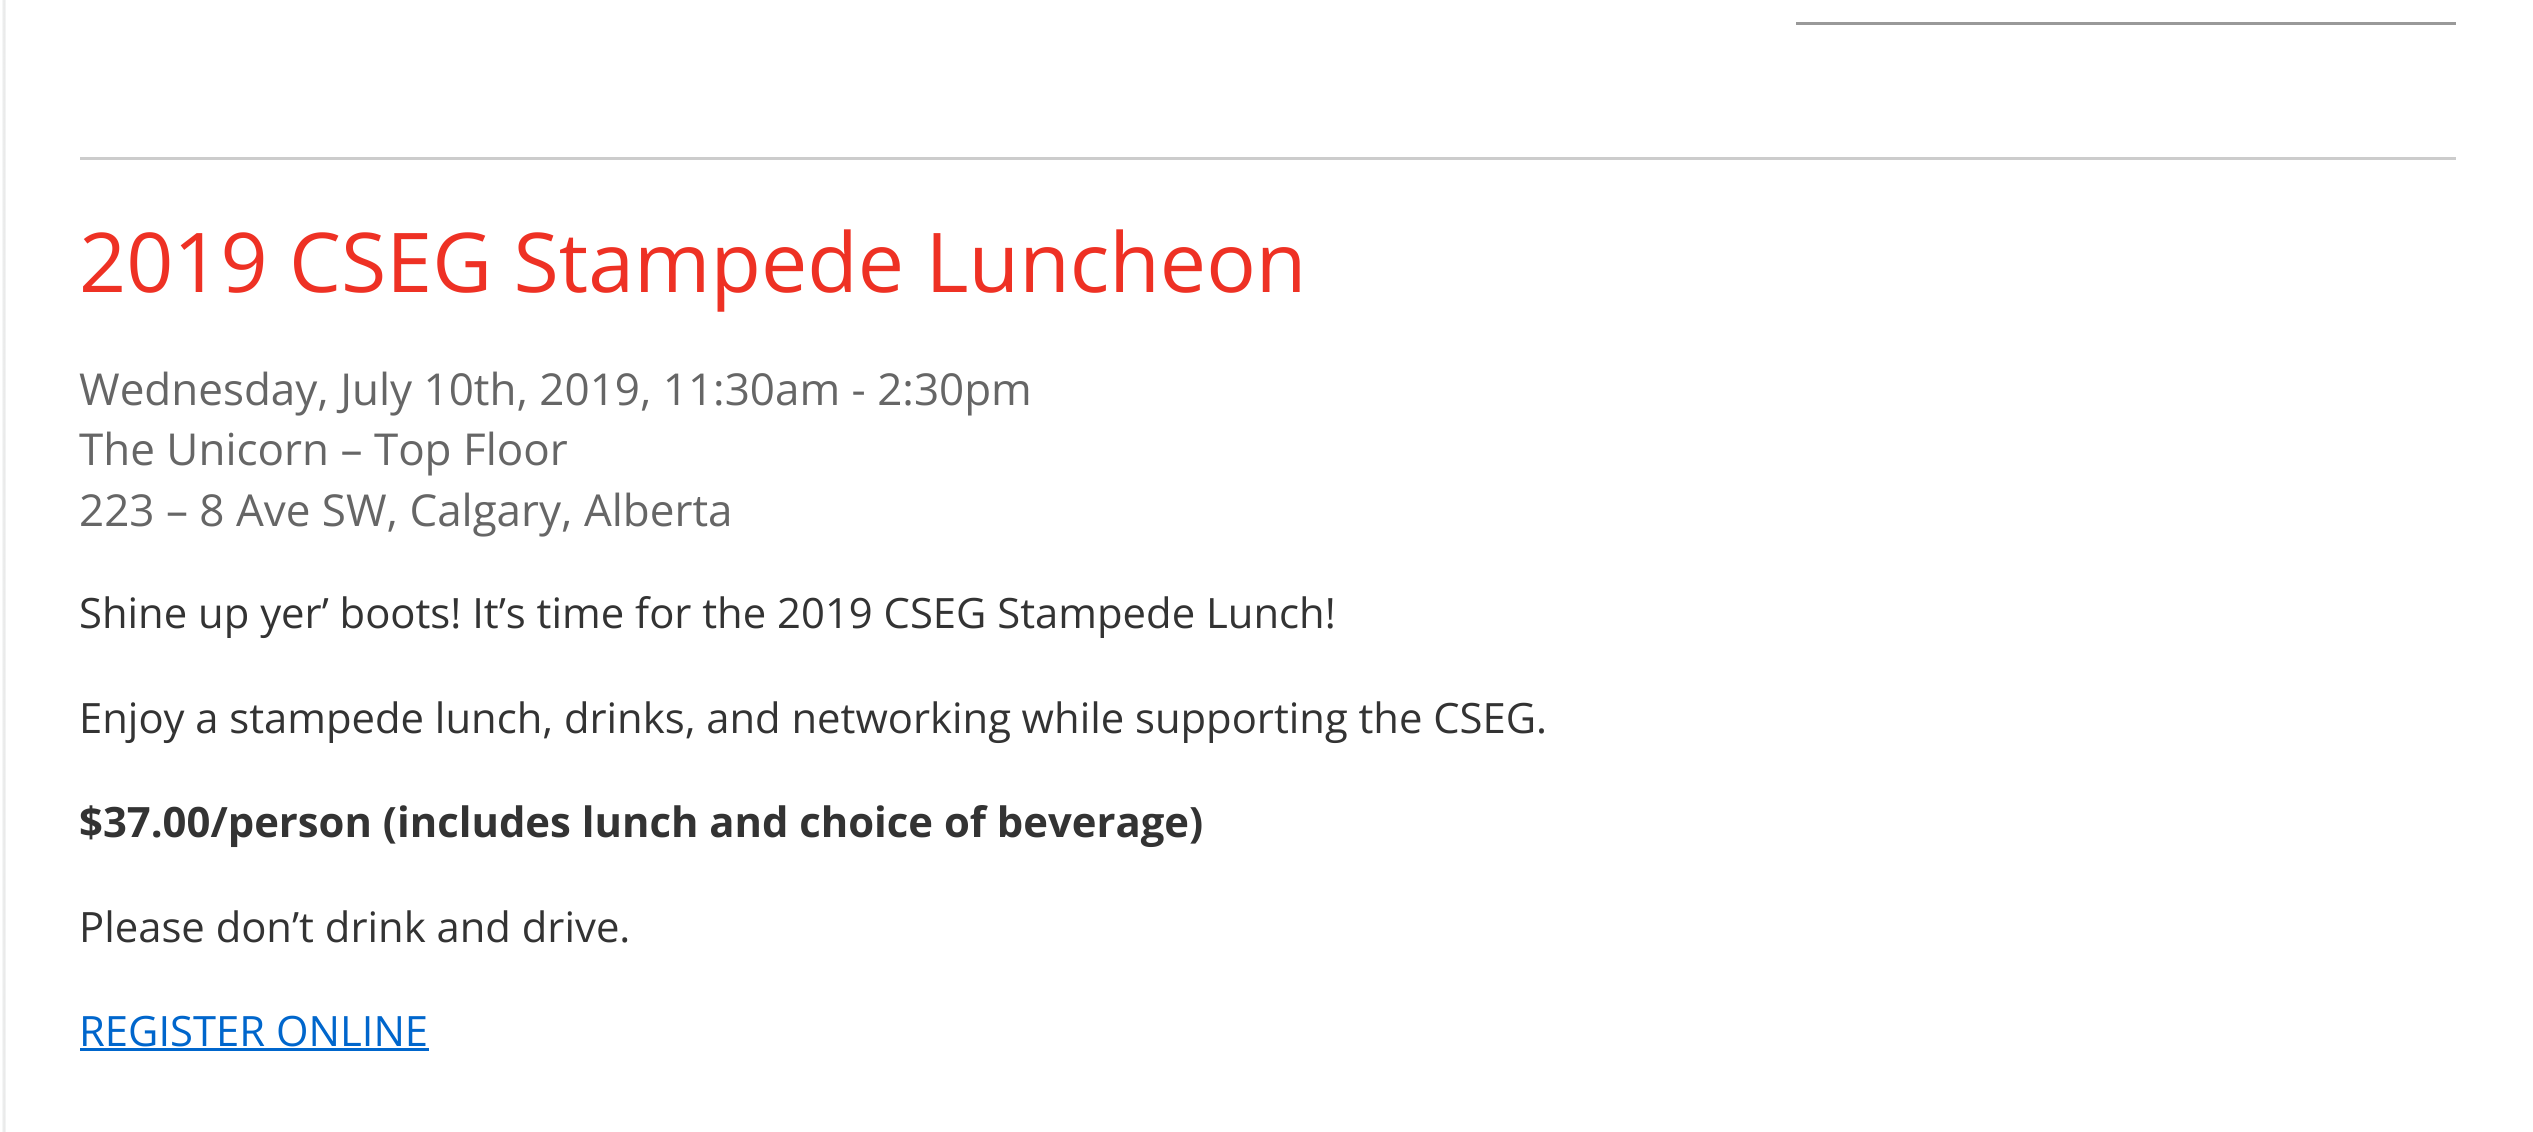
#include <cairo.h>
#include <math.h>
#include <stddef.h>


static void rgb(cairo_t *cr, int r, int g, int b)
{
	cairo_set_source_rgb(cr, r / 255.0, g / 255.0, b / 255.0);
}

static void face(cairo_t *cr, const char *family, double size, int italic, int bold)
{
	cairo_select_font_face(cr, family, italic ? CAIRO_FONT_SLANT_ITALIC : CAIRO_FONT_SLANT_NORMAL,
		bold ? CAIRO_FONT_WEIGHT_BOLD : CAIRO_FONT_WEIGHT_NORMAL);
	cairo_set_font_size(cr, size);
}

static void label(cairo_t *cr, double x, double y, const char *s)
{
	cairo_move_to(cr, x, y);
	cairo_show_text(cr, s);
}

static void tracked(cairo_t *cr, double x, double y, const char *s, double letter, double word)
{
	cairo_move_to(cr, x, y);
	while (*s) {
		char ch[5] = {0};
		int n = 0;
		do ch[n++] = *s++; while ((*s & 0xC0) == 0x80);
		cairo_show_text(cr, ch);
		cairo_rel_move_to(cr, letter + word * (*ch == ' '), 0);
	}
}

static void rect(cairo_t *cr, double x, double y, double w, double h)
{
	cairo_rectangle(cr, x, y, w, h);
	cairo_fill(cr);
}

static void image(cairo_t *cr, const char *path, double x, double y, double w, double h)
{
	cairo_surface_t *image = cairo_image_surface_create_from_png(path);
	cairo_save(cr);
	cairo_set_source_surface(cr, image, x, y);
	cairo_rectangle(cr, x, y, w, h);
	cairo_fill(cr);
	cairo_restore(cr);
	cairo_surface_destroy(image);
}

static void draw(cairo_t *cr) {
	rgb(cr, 255, 255, 255);
	cairo_paint(cr);
	image(cr, "image0.png", 2, 0, 4, 1132);
	rgb(cr, 204, 204, 204);
	rect(cr, 80, 157, 2376, 3);
	rgb(cr, 153, 153, 153);
	rect(cr, 1796, 22, 660, 3);
	face(cr, "Open Sans", 82.5, 0, 0);
	rgb(cr, 238, 49, 36);
	label(cr, 79, 292, "2019 CSEG Stampede Luncheon");
	face(cr, "Open Sans", 44, 0, 0);
	rgb(cr, 102, 102, 102);
	label(cr, 79, 405, "Wednesday, July 10th, 2019, 11:30am - 2:30pm");
	label(cr, 79, 465, "The Unicorn – Top Floor");
	label(cr, 79, 526, "223 – 8 Ave SW, Calgary, Alberta");
	face(cr, "Open Sans", 41.8, 0, 0);
	rgb(cr, 51, 51, 51);
	label(cr, 79, 628, "Shine up yer’ boots! It’s time for the 2019 CSEG Stampede Lunch!");
	tracked(cr, 79, 733, "Enjoy a stampede lunch, drinks, and networking while supporting the CSEG.", 0, -0.1);
	face(cr, "Open Sans", 41.8, 0, 1);
	label(cr, 79, 837, "$37.00/person (includes lunch and choice of beverage)");
	face(cr, "Open Sans", 41.8, 0, 0);
	label(cr, 79, 942, "Please don’t drink and drive.");
	rgb(cr, 0, 102, 204);
	label(cr, 79, 1046, "REGISTER ONLINE");
	rect(cr, 80, 1048, 349, 3);
}

int main(void) {
	cairo_surface_t *surface = cairo_image_surface_create(CAIRO_FORMAT_RGB24, 2533, 1132);
	cairo_t *cr = cairo_create(surface);
	cairo_font_options_t *options = cairo_font_options_create();
	cairo_font_options_set_hint_metrics(options, CAIRO_HINT_METRICS_OFF);
	cairo_font_options_set_hint_style(options, CAIRO_HINT_STYLE_NONE);
	cairo_set_font_options(cr, options);
	cairo_set_miter_limit(cr, 4);
	draw(cr);
	cairo_surface_write_to_png(surface, "render.png");
	cairo_font_options_destroy(options);
	cairo_destroy(cr);
	cairo_surface_destroy(surface);
	return 0;
}
